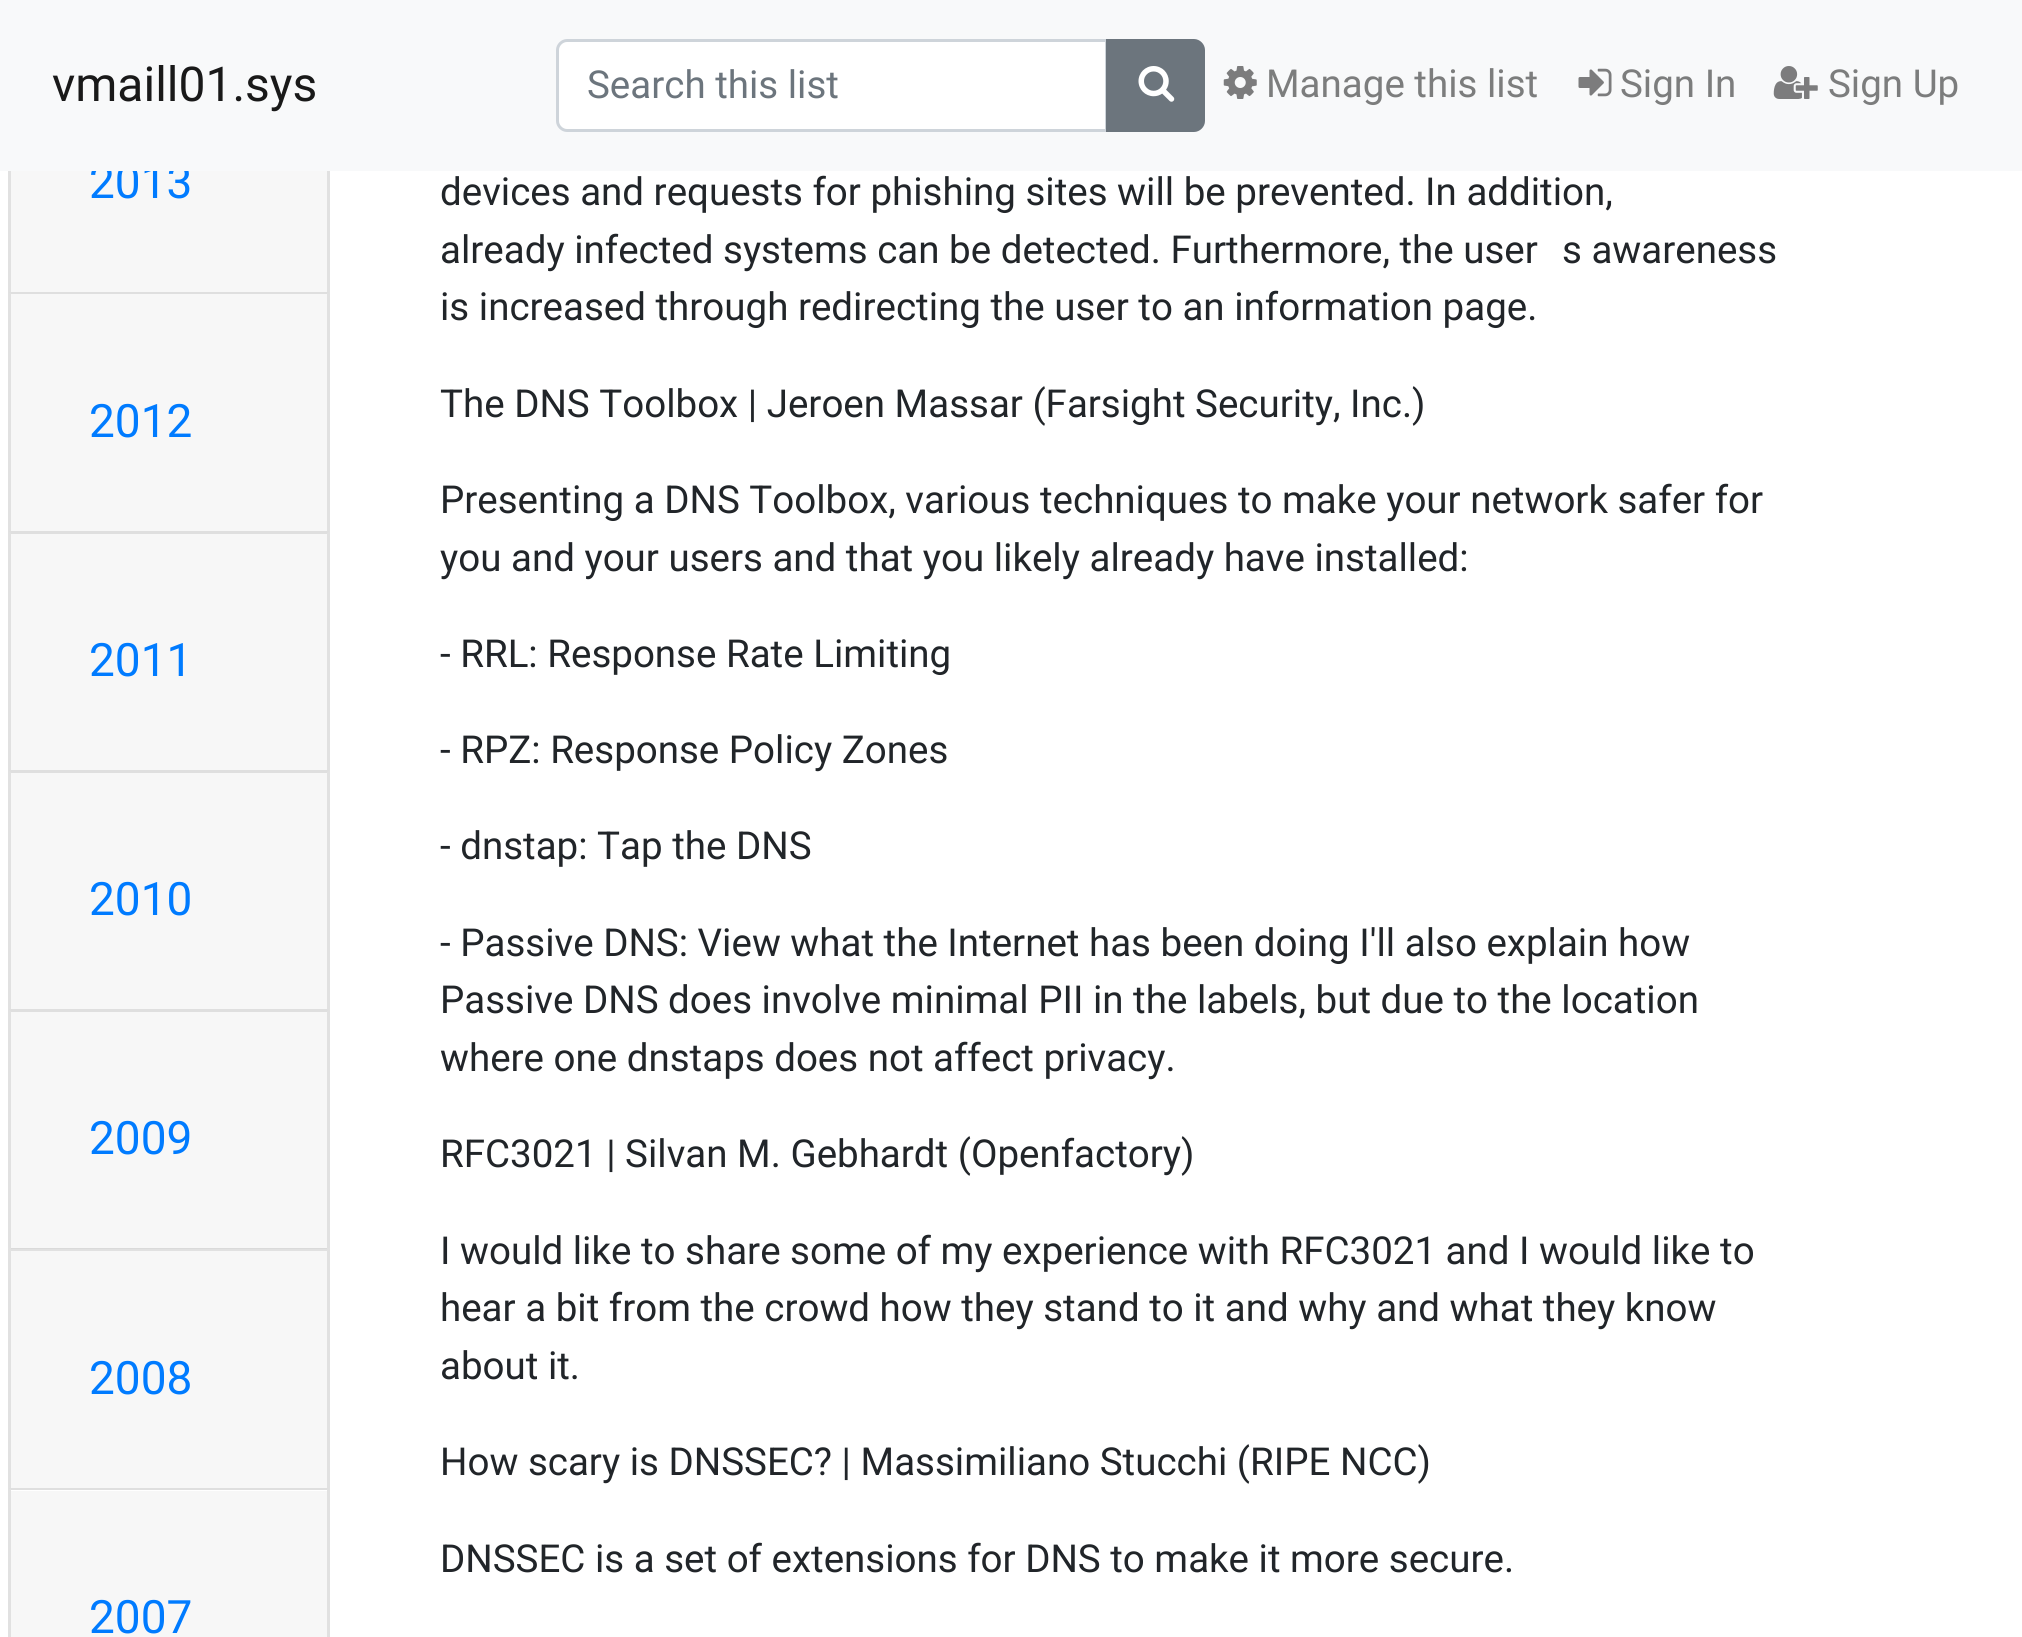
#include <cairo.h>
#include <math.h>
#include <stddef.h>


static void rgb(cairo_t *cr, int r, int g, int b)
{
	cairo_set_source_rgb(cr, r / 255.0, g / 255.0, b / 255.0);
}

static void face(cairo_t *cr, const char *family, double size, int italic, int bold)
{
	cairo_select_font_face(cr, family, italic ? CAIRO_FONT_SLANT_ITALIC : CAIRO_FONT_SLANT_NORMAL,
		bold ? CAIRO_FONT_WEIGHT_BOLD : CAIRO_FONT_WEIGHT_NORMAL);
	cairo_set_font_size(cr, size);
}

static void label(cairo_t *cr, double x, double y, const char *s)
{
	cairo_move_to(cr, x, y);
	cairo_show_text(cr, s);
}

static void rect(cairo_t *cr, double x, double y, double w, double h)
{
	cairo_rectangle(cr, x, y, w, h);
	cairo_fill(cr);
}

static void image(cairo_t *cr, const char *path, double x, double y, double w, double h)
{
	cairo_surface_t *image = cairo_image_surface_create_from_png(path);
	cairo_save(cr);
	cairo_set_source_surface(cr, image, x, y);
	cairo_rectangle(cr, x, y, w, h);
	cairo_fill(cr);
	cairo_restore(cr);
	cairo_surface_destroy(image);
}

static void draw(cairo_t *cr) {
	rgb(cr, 255, 255, 255);
	cairo_paint(cr);
	cairo_set_source_rgba(cr, 0, 0, 0, 0.12);
	cairo_new_path(cr);
	cairo_move_to(cr, 330, 52);
	cairo_line_to(cr, 330, 292);
	cairo_line_to(cr, 327, 292);
	cairo_line_to(cr, 327, 55);
	cairo_close_path(cr);
	cairo_fill(cr);
	cairo_new_path(cr);
	cairo_move_to(cr, 8, 292);
	cairo_line_to(cr, 8, 52);
	cairo_line_to(cr, 11, 55);
	cairo_line_to(cr, 11, 292);
	cairo_close_path(cr);
	cairo_fill(cr);
	rgb(cr, 247, 247, 247);
	rect(cr, 11, 171, 316, 121);
	face(cr, "Roboto", 46, 0, 0);
	rgb(cr, 0, 123, 255);
	label(cr, 89, 198, "2013");
	rgb(cr, 248, 249, 250);
	rect(cr, 0, 0, 2022, 171);
	face(cr, "Roboto", 48, 0, 0);
	rgb(cr, 25, 25, 25);
	label(cr, 52, 101, "vmaill01.sys");
	rgb(cr, 255, 255, 255);
	cairo_new_path(cr);
	cairo_move_to(cr, 565, 41);
	cairo_line_to(cr, 1106, 41);
	cairo_line_to(cr, 1106, 129);
	cairo_line_to(cr, 565, 129);
	cairo_curve_to(cr, 561, 129, 558, 126, 558, 122);
	cairo_line_to(cr, 558, 48);
	cairo_curve_to(cr, 558, 44, 561, 41, 565, 41);
	cairo_close_path(cr);
	cairo_fill(cr);
	cairo_new_path(cr);
	cairo_move_to(cr, 567, 40.5);
	cairo_line_to(cr, 1106.5, 40.5);
	cairo_line_to(cr, 1106.5, 130.5);
	cairo_line_to(cr, 567, 130.5);
	cairo_curve_to(cr, 562, 130.5, 557.5, 126, 557.5, 121);
	cairo_line_to(cr, 557.5, 50);
	cairo_curve_to(cr, 557.5, 45, 562, 40.5, 567, 40.5);
	cairo_close_path(cr);
	rgb(cr, 206, 212, 218);
	cairo_set_line_width(cr, 3);
	cairo_stroke(cr);
	face(cr, "Roboto", 38.5, 0, 0);
	rgb(cr, 108, 117, 125);
	label(cr, 587, 98, "Search this list");
	cairo_new_path(cr);
	cairo_move_to(cr, 1107.5, 40.5);
	cairo_line_to(cr, 1194, 40.5);
	cairo_curve_to(cr, 1199, 40.5, 1203.5, 45, 1203.5, 50);
	cairo_line_to(cr, 1203.5, 121);
	cairo_curve_to(cr, 1203.5, 126, 1199, 130.5, 1194, 130.5);
	cairo_line_to(cr, 1107.5, 130.5);
	cairo_close_path(cr);
	cairo_fill_preserve(cr);
	cairo_stroke(cr);
	image(cr, "image0.png", 1138, 66, 37, 36);
	image(cr, "image1.png", 1223, 66, 34, 33);
	rgb(cr, 124, 125, 125);
	label(cr, 1266, 97, "Manage this list");
	image(cr, "image2.png", 1578, 68, 34, 29);
	label(cr, 1620, 97, "Sign In");
	image(cr, "image3.png", 1773, 66, 45, 33);
	label(cr, 1828, 97, "Sign Up");
	rgb(cr, 223, 223, 223);
	cairo_new_path(cr);
	cairo_move_to(cr, 8, 292);
	cairo_line_to(cr, 330, 292);
	cairo_line_to(cr, 327, 294);
	cairo_line_to(cr, 11, 294);
	cairo_close_path(cr);
	cairo_fill(cr);
	cairo_set_source_rgba(cr, 0, 0, 0, 0.12);
	cairo_new_path(cr);
	cairo_move_to(cr, 330, 292);
	cairo_line_to(cr, 330, 531);
	cairo_line_to(cr, 327, 531);
	cairo_line_to(cr, 327, 294);
	cairo_close_path(cr);
	cairo_fill(cr);
	cairo_new_path(cr);
	cairo_move_to(cr, 8, 531);
	cairo_line_to(cr, 8, 292);
	cairo_line_to(cr, 11, 294);
	cairo_line_to(cr, 11, 531);
	cairo_close_path(cr);
	cairo_fill(cr);
	rgb(cr, 247, 247, 247);
	rect(cr, 11, 294, 316, 237);
	face(cr, "Roboto", 46, 0, 0);
	rgb(cr, 0, 123, 255);
	label(cr, 89, 437, "2012");
	rgb(cr, 223, 223, 223);
	cairo_new_path(cr);
	cairo_move_to(cr, 8, 531);
	cairo_line_to(cr, 330, 531);
	cairo_line_to(cr, 327, 534);
	cairo_line_to(cr, 11, 534);
	cairo_close_path(cr);
	cairo_fill(cr);
	cairo_set_source_rgba(cr, 0, 0, 0, 0.12);
	cairo_new_path(cr);
	cairo_move_to(cr, 330, 531);
	cairo_line_to(cr, 330, 770);
	cairo_line_to(cr, 327, 770);
	cairo_line_to(cr, 327, 534);
	cairo_close_path(cr);
	cairo_fill(cr);
	cairo_new_path(cr);
	cairo_move_to(cr, 8, 770);
	cairo_line_to(cr, 8, 531);
	cairo_line_to(cr, 11, 534);
	cairo_line_to(cr, 11, 770);
	cairo_close_path(cr);
	cairo_fill(cr);
	rgb(cr, 247, 247, 247);
	rect(cr, 11, 534, 316, 236);
	rgb(cr, 0, 123, 255);
	label(cr, 89, 676, "2011");
	rgb(cr, 223, 223, 223);
	cairo_new_path(cr);
	cairo_move_to(cr, 8, 770);
	cairo_line_to(cr, 330, 770);
	cairo_line_to(cr, 327, 773);
	cairo_line_to(cr, 11, 773);
	cairo_close_path(cr);
	cairo_fill(cr);
	cairo_set_source_rgba(cr, 0, 0, 0, 0.12);
	cairo_new_path(cr);
	cairo_move_to(cr, 330, 770);
	cairo_line_to(cr, 330, 1009);
	cairo_line_to(cr, 327, 1009);
	cairo_line_to(cr, 327, 773);
	cairo_close_path(cr);
	cairo_fill(cr);
	cairo_new_path(cr);
	cairo_move_to(cr, 8, 1009);
	cairo_line_to(cr, 8, 770);
	cairo_line_to(cr, 11, 773);
	cairo_line_to(cr, 11, 1009);
	cairo_close_path(cr);
	cairo_fill(cr);
	rgb(cr, 247, 247, 247);
	rect(cr, 11, 773, 316, 236);
	rgb(cr, 0, 123, 255);
	label(cr, 89, 915, "2010");
	rgb(cr, 223, 223, 223);
	cairo_new_path(cr);
	cairo_move_to(cr, 8, 1009);
	cairo_line_to(cr, 330, 1009);
	cairo_line_to(cr, 327, 1012);
	cairo_line_to(cr, 11, 1012);
	cairo_close_path(cr);
	cairo_fill(cr);
	cairo_set_source_rgba(cr, 0, 0, 0, 0.12);
	cairo_new_path(cr);
	cairo_move_to(cr, 330, 1009);
	cairo_line_to(cr, 330, 1248);
	cairo_line_to(cr, 327, 1248);
	cairo_line_to(cr, 327, 1012);
	cairo_close_path(cr);
	cairo_fill(cr);
	cairo_new_path(cr);
	cairo_move_to(cr, 8, 1248);
	cairo_line_to(cr, 8, 1009);
	cairo_line_to(cr, 11, 1012);
	cairo_line_to(cr, 11, 1248);
	cairo_close_path(cr);
	cairo_fill(cr);
	rgb(cr, 247, 247, 247);
	rect(cr, 11, 1012, 316, 237);
	rgb(cr, 0, 123, 255);
	label(cr, 89, 1154, "2009");
	cairo_set_source_rgba(cr, 0, 0, 0, 0.12);
	cairo_new_path(cr);
	cairo_move_to(cr, 8, 1248);
	cairo_line_to(cr, 330, 1248);
	cairo_line_to(cr, 327, 1251);
	cairo_line_to(cr, 11, 1251);
	cairo_close_path(cr);
	cairo_fill(cr);
	cairo_new_path(cr);
	cairo_move_to(cr, 330, 1248);
	cairo_line_to(cr, 330, 1488);
	cairo_line_to(cr, 327, 1488);
	cairo_line_to(cr, 327, 1251);
	cairo_close_path(cr);
	cairo_fill(cr);
	cairo_new_path(cr);
	cairo_move_to(cr, 8, 1488);
	cairo_line_to(cr, 8, 1248);
	cairo_line_to(cr, 11, 1251);
	cairo_line_to(cr, 11, 1488);
	cairo_close_path(cr);
	cairo_fill(cr);
	rgb(cr, 247, 247, 247);
	rect(cr, 11, 1251, 316, 237);
	rgb(cr, 0, 123, 255);
	label(cr, 89, 1394, "2008");
	rgb(cr, 223, 223, 223);
	cairo_new_path(cr);
	cairo_move_to(cr, 8, 1488);
	cairo_line_to(cr, 330, 1488);
	cairo_line_to(cr, 327, 1490);
	cairo_line_to(cr, 11, 1490);
	cairo_close_path(cr);
	cairo_fill(cr);
	cairo_set_source_rgba(cr, 0, 0, 0, 0.12);
	cairo_new_path(cr);
	cairo_move_to(cr, 330, 1488);
	cairo_line_to(cr, 330, 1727);
	cairo_line_to(cr, 327, 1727);
	cairo_line_to(cr, 327, 1490);
	cairo_close_path(cr);
	cairo_fill(cr);
	cairo_new_path(cr);
	cairo_move_to(cr, 8, 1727);
	cairo_line_to(cr, 8, 1488);
	cairo_line_to(cr, 11, 1490);
	cairo_line_to(cr, 11, 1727);
	cairo_close_path(cr);
	cairo_fill(cr);
	rgb(cr, 247, 247, 247);
	rect(cr, 11, 1491, 316, 146);
	rgb(cr, 0, 123, 255);
	label(cr, 89, 1633, "2007");
	face(cr, "Roboto", 38.5, 0, 0);
	rgb(cr, 33, 37, 41);
	label(cr, 440, 205, "devices and requests for phishing sites will be prevented. In addition,");
	label(cr, 440, 263, "already infected systems can be detected. Furthermore, the user");
	label(cr, 1562, 263, "s awareness");
	label(cr, 440, 320, "is increased through redirecting the user to an information page.");
	label(cr, 440, 417, "The DNS Toolbox | Jeroen Massar (Farsight Security, Inc.)");
	label(cr, 440, 513, "Presenting a DNS Toolbox, various techniques to make your network safer for");
	label(cr, 440, 571, "you and your users and that you likely already have installed:");
	label(cr, 440, 667, "- RRL: Response Rate Limiting");
	label(cr, 440, 763, "- RPZ: Response Policy Zones");
	label(cr, 440, 859, "- dnstap: Tap the DNS");
	label(cr, 440, 956, "- Passive DNS: View what the Internet has been doing I'll also explain how");
	label(cr, 440, 1013, "Passive DNS does involve minimal PII in the labels, but due to the location");
	label(cr, 440, 1071, "where one dnstaps does not affect privacy.");
	label(cr, 440, 1167, "RFC3021 | Silvan M. Gebhardt (Openfactory)");
	label(cr, 440, 1264, "I would like to share some of my experience with RFC3021 and I would like to");
	label(cr, 440, 1321, "hear a bit from the crowd how they stand to it and why and what they know");
	label(cr, 440, 1379, "about it.");
	label(cr, 440, 1475, "How scary is DNSSEC? | Massimiliano Stucchi (RIPE NCC)");
	label(cr, 440, 1572, "DNSSEC is a set of extensions for DNS to make it more secure.");
}

int main(void) {
	cairo_surface_t *surface = cairo_image_surface_create(CAIRO_FORMAT_RGB24, 2022, 1637);
	cairo_t *cr = cairo_create(surface);
	cairo_font_options_t *options = cairo_font_options_create();
	cairo_font_options_set_hint_metrics(options, CAIRO_HINT_METRICS_OFF);
	cairo_font_options_set_hint_style(options, CAIRO_HINT_STYLE_NONE);
	cairo_set_font_options(cr, options);
	cairo_set_miter_limit(cr, 4);
	draw(cr);
	cairo_surface_write_to_png(surface, "render.png");
	cairo_font_options_destroy(options);
	cairo_destroy(cr);
	cairo_surface_destroy(surface);
	return 0;
}
